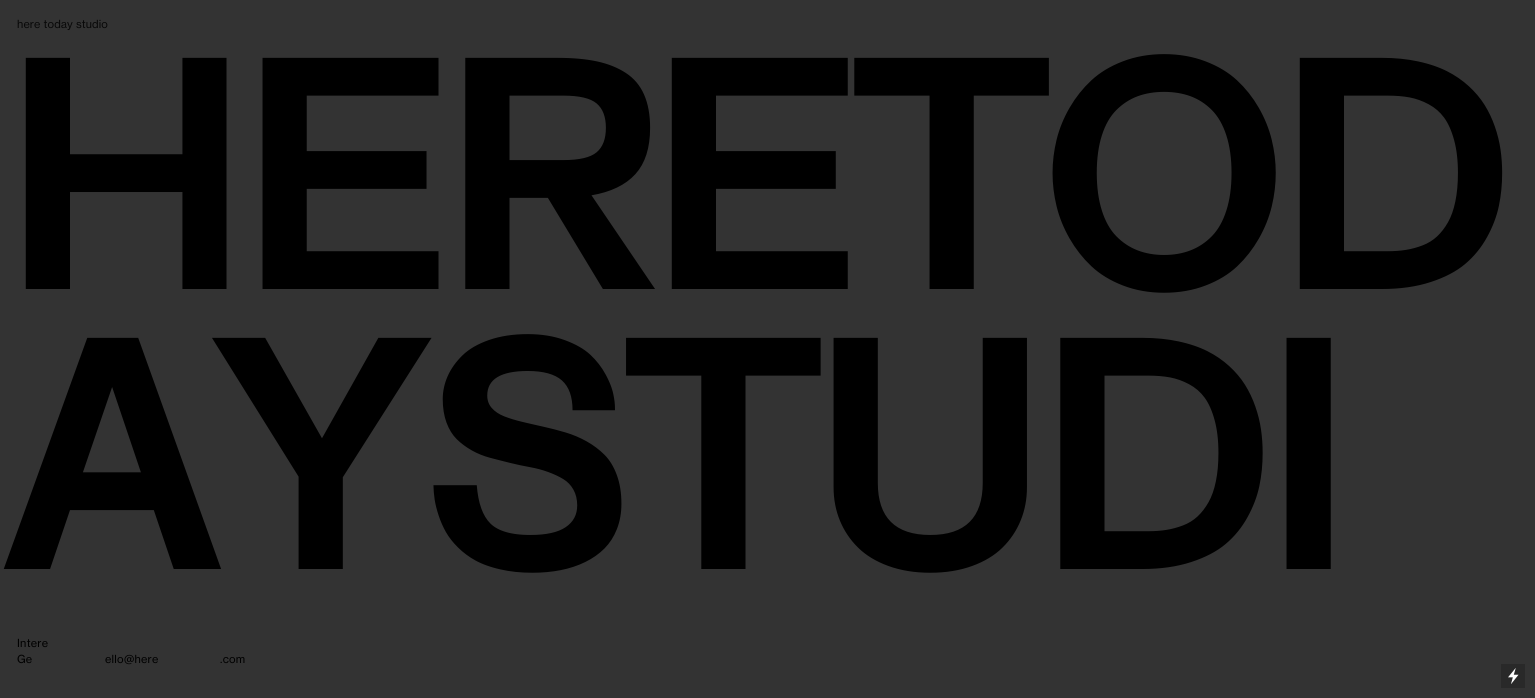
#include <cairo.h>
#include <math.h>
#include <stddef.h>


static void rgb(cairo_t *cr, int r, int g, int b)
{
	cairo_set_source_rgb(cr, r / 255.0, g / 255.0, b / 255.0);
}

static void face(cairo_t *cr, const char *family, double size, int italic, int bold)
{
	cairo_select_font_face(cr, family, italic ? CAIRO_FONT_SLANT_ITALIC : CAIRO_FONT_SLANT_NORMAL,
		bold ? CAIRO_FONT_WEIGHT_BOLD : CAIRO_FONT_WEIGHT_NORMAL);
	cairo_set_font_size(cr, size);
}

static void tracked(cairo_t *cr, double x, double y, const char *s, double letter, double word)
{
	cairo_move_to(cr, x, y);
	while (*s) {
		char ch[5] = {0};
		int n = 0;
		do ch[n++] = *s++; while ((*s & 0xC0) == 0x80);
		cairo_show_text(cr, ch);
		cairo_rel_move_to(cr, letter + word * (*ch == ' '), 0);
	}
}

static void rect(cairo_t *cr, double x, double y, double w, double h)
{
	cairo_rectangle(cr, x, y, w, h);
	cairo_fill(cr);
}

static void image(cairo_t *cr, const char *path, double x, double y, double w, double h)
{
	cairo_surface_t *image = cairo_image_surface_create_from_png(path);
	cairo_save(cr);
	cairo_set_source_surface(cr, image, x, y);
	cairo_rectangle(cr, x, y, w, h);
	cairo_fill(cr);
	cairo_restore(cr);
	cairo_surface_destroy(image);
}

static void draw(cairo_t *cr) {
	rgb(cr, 51, 51, 51);
	cairo_paint(cr);
	face(cr, "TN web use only", 11, 0, 0);
	rgb(cr, 8, 8, 8);
	tracked(cr, 17, 28, "here today studio", 0.1, 0);
	face(cr, "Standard", 307, 0, 1);
	rgb(cr, 0, 0, 0);
	tracked(cr, 0, 289, "HERETOD", -15.5, 0);
	tracked(cr, 0, 569, "AYSTUDI", -15.5, 0);
	face(cr, "TN web use only", 11, 0, 0);
	tracked(cr, 17, 647, "Intere", 0.25, 0);
	tracked(cr, 17, 663, "Ge", 0.25, 0);
	tracked(cr, 105, 663, "ello@here", 0.25, 0);
	tracked(cr, 220, 663, ".com", 0.25, 0);
	rgb(cr, 41, 41, 41);
	rect(cr, 1501, 664, 24, 24);
	image(cr, "image0.png", 1508, 668, 11, 16);
}

int main(void) {
	cairo_surface_t *surface = cairo_image_surface_create(CAIRO_FORMAT_RGB24, 1535, 698);
	cairo_t *cr = cairo_create(surface);
	cairo_font_options_t *options = cairo_font_options_create();
	cairo_font_options_set_hint_metrics(options, CAIRO_HINT_METRICS_OFF);
	cairo_font_options_set_hint_style(options, CAIRO_HINT_STYLE_NONE);
	cairo_set_font_options(cr, options);
	cairo_set_miter_limit(cr, 4);
	draw(cr);
	cairo_surface_write_to_png(surface, "render.png");
	cairo_font_options_destroy(options);
	cairo_destroy(cr);
	cairo_surface_destroy(surface);
	return 0;
}
